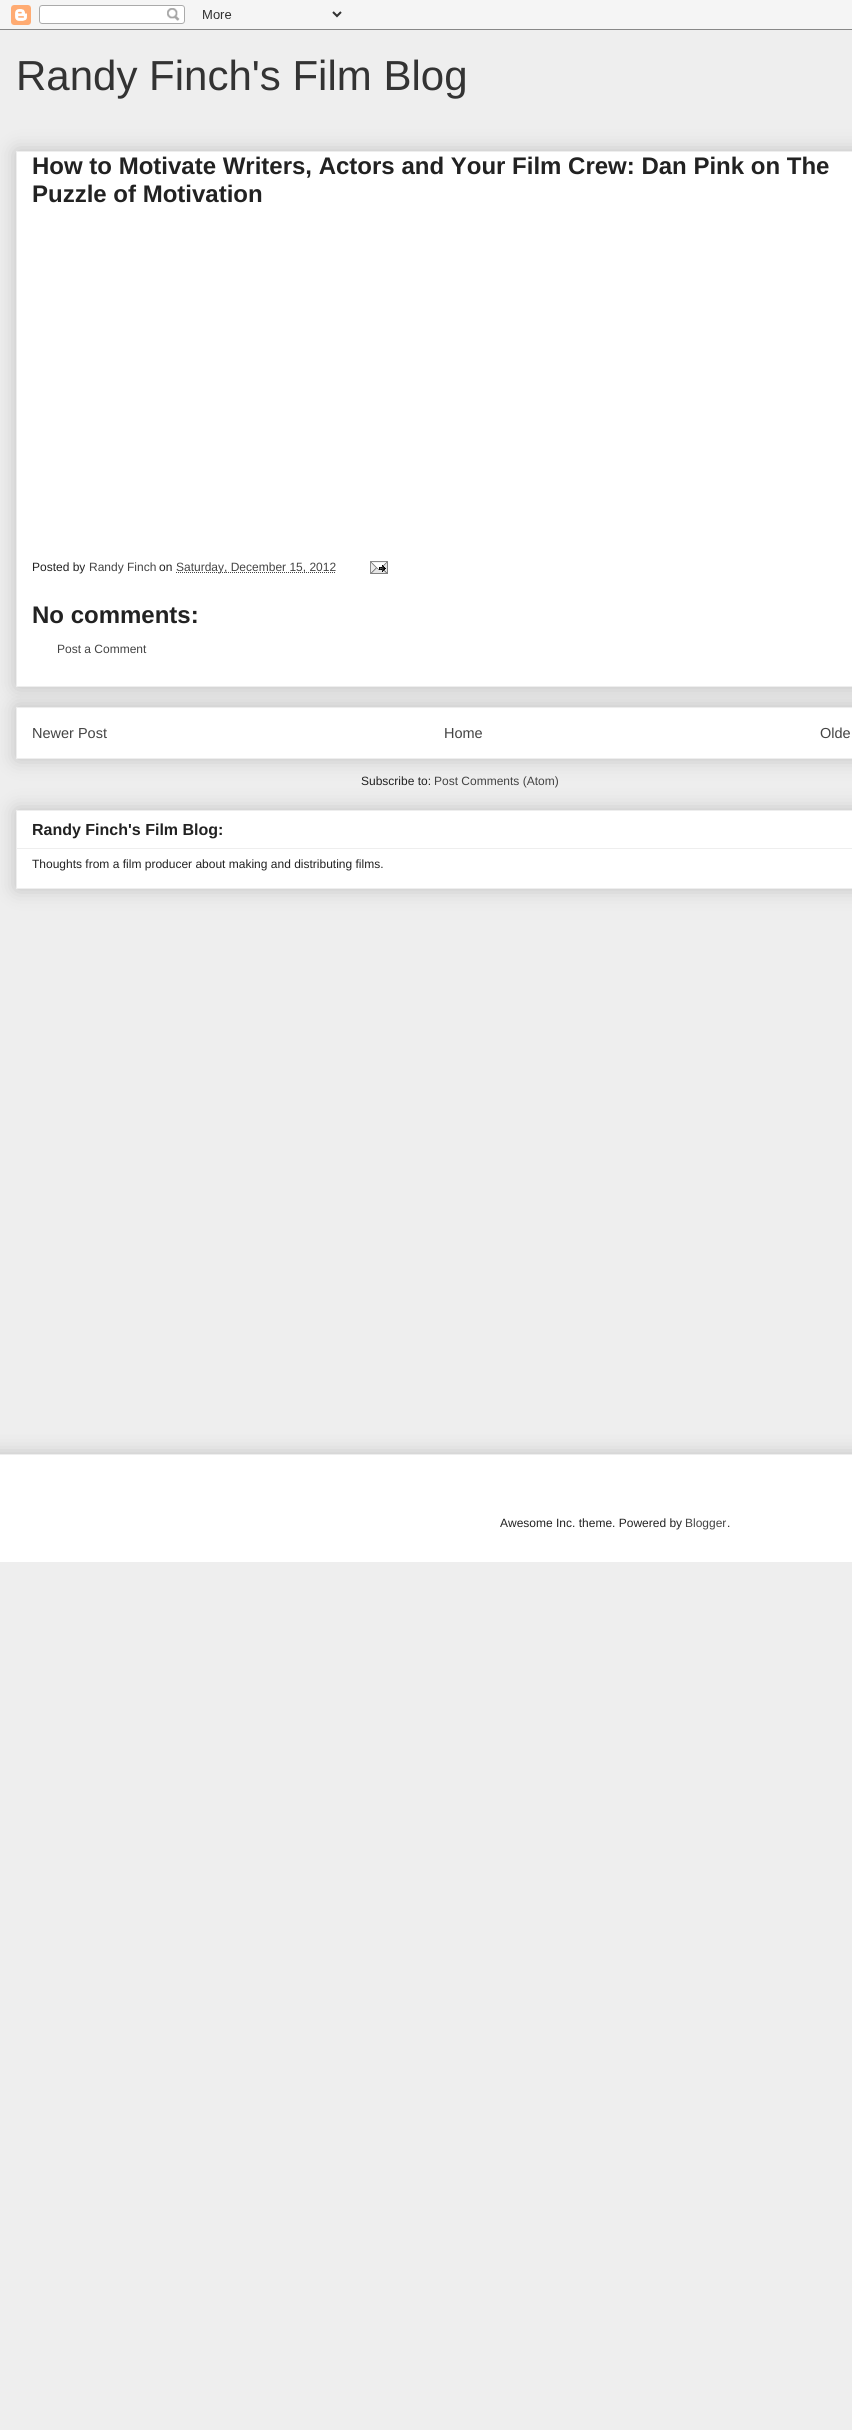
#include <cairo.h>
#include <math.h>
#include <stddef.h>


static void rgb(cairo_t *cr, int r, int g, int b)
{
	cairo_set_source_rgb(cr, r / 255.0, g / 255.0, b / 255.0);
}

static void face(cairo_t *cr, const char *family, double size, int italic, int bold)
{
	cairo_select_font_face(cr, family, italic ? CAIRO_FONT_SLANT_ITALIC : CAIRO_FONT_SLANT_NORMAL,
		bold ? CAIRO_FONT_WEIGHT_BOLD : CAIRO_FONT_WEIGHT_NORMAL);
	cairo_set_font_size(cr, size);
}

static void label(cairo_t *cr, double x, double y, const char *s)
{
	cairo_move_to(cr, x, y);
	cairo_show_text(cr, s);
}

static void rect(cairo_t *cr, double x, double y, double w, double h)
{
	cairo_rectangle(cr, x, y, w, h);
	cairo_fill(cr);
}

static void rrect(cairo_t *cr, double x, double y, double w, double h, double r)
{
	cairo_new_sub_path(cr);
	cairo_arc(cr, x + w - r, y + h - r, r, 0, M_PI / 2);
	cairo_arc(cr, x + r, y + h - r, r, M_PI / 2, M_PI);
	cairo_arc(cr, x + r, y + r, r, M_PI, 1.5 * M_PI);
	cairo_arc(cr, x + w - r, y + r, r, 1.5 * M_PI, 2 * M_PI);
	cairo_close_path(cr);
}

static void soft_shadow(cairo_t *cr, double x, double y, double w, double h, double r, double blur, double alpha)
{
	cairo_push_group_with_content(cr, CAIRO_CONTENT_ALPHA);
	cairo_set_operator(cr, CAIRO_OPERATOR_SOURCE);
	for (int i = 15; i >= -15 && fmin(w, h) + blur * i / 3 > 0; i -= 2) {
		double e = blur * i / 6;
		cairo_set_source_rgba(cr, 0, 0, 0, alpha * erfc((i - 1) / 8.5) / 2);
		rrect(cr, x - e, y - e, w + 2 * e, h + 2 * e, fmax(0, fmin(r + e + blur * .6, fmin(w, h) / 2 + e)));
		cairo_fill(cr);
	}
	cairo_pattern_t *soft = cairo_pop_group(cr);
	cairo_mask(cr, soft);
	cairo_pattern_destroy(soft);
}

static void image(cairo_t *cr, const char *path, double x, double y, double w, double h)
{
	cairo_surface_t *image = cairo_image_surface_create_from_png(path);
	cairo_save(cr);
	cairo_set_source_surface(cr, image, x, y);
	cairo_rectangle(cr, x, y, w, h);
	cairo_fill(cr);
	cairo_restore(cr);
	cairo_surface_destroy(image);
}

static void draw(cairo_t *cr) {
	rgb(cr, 238, 238, 238);
	cairo_paint(cr);
	image(cr, "image0.png", 0, 0, 852, 30);
	face(cr, "Liberation Sans", 42, 0, 0);
	rgb(cr, 51, 51, 51);
	label(cr, 16, 90, "Randy Finch's Film Blog");
	rgb(cr, 0, 0, 0);
	soft_shadow(cr, 16, 707, 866, 52, 0, 10, 0.2);
	rgb(cr, 255, 255, 255);
	cairo_rectangle(cr, 16.5, 707.5, 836, 51);
	cairo_fill_preserve(cr);
	rgb(cr, 238, 238, 238);
	cairo_set_line_width(cr, 1);
	cairo_stroke(cr);
	rgb(cr, 0, 0, 0);
	soft_shadow(cr, 16, 151, 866, 536, 0, 10, 0.2);
	rgb(cr, 255, 255, 255);
	cairo_rectangle(cr, 16.5, 151.5, 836, 535);
	cairo_fill_preserve(cr);
	rgb(cr, 238, 238, 238);
	cairo_stroke(cr);
	face(cr, "Liberation Sans", 24, 0, 1);
	rgb(cr, 34, 34, 34);
	label(cr, 32, 174, "How to Motivate Writers, Actors and Your Film Crew: Dan Pink on The");
	label(cr, 32, 202, "Puzzle of Motivation");
	face(cr, "Liberation Sans", 12, 0, 0);
	label(cr, 32, 571, "Posted by");
	rgb(cr, 68, 68, 68);
	label(cr, 89, 571, "Randy Finch");
	rgb(cr, 34, 34, 34);
	label(cr, 159, 571, "on");
	cairo_new_path(cr);
	cairo_move_to(cr, 176, 572.5);
	cairo_line_to(cr, 336, 572.5);
	rgb(cr, 68, 68, 68);
	cairo_set_dash(cr, (double[]){1, 1}, 2, 0);
	cairo_stroke(cr);
	label(cr, 176, 571, "Saturday, December 15, 2012");
	image(cr, "image1.png", 370, 561, 18, 13);
	face(cr, "Liberation Sans", 24, 0, 1);
	rgb(cr, 34, 34, 34);
	label(cr, 32, 623, "No comments:");
	face(cr, "Liberation Sans", 12, 0, 0);
	rgb(cr, 68, 68, 68);
	label(cr, 57, 653, "Post a Comment");
	face(cr, "Liberation Sans", 14.5, 0, 0);
	label(cr, 32, 738, "Newer Post");
	label(cr, 444, 738, "Home");
	label(cr, 820, 738, "Olde");
	face(cr, "Liberation Sans", 12, 0, 0);
	rgb(cr, 34, 34, 34);
	label(cr, 361, 785, "Subscribe to:");
	rgb(cr, 68, 68, 68);
	label(cr, 434, 785, "Post Comments (Atom)");
	rgb(cr, 0, 0, 0);
	soft_shadow(cr, 16, 810, 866, 79, 0, 10, 0.2);
	rgb(cr, 255, 255, 255);
	cairo_rectangle(cr, 16.5, 810.5, 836, 78);
	cairo_fill_preserve(cr);
	rgb(cr, 238, 238, 238);
	cairo_set_dash(cr, NULL, 0, 0);
	cairo_stroke(cr);
	face(cr, "Liberation Sans", 16, 0, 1);
	rgb(cr, 34, 34, 34);
	label(cr, 32, 835, "Randy Finch's Film Blog:");
	rgb(cr, 238, 238, 238);
	rect(cr, 17, 848, 835, 1);
	face(cr, "Liberation Sans", 12, 0, 0);
	rgb(cr, 34, 34, 34);
	label(cr, 32, 868, "Thoughts from a film producer about making and distributing films.");
	cairo_save(cr);
	cairo_rectangle(cr, 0, 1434, 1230, 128);
	cairo_clip(cr);
	rgb(cr, 0, 0, 0);
	soft_shadow(cr, -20, 1454, 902, 108, 0, 10, 0.2);
	cairo_restore(cr);
	rgb(cr, 255, 255, 255);
	rect(cr, 0, 1455, 852, 107);
	rgb(cr, 238, 238, 238);
	rect(cr, 0, 1454, 852, 1);
	rgb(cr, 34, 34, 34);
	label(cr, 500, 1527, "Awesome Inc. theme. Powered by");
	rgb(cr, 68, 68, 68);
	label(cr, 685, 1527, "Blogger");
	rgb(cr, 34, 34, 34);
	label(cr, 727, 1527, ".");
}

int main(void) {
	cairo_surface_t *surface = cairo_image_surface_create(CAIRO_FORMAT_RGB24, 852, 2430);
	cairo_t *cr = cairo_create(surface);
	cairo_font_options_t *options = cairo_font_options_create();
	cairo_font_options_set_hint_metrics(options, CAIRO_HINT_METRICS_OFF);
	cairo_font_options_set_hint_style(options, CAIRO_HINT_STYLE_NONE);
	cairo_set_font_options(cr, options);
	cairo_set_miter_limit(cr, 4);
	draw(cr);
	cairo_surface_write_to_png(surface, "render.png");
	cairo_font_options_destroy(options);
	cairo_destroy(cr);
	cairo_surface_destroy(surface);
	return 0;
}
